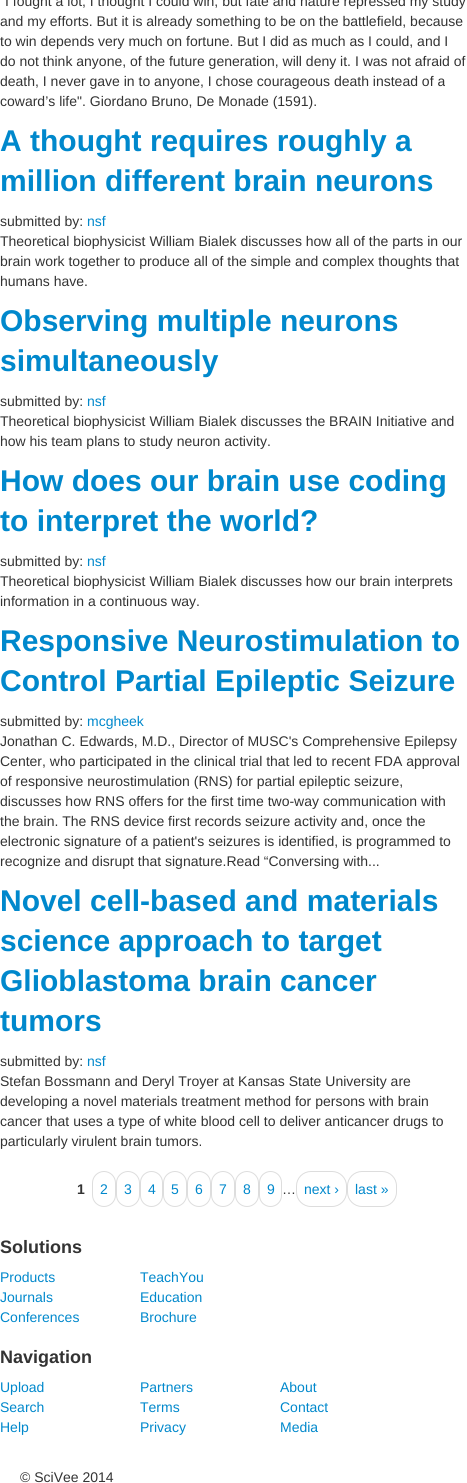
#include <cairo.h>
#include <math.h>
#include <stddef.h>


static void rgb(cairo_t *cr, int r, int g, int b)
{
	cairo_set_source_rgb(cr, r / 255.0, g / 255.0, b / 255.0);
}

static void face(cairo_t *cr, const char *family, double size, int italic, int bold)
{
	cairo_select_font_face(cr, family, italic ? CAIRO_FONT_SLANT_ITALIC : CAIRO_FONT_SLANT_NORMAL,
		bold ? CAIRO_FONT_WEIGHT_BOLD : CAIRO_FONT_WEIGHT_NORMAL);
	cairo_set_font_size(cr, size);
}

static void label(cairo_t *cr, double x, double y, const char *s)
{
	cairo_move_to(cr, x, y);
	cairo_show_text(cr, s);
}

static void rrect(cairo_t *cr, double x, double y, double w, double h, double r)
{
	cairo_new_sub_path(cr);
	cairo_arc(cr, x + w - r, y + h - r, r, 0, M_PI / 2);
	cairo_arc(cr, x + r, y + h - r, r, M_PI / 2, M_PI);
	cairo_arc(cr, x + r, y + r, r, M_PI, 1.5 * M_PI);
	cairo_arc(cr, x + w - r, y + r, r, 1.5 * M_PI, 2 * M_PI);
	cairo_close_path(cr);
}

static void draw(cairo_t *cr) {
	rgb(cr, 255, 255, 255);
	cairo_paint(cr);
	face(cr, "Liberation Sans", 14, 0, 0);
	rgb(cr, 51, 51, 51);
	label(cr, 5, 6, "I fought a lot; I thought I could win, but fate and nature repressed my study");
	label(cr, 0, 26, "and my efforts. But it is already something to be on the battlefield, because");
	label(cr, 0, 46, "to win depends very much on fortune. But I did as much as I could, and I");
	label(cr, 0, 66, "do not think anyone, of the future generation, will deny it. I was not afraid of");
	label(cr, 0, 86, "death, I never gave in to anyone, I chose courageous death instead of a");
	label(cr, 0, 106, "coward’s life\". Giordano Bruno, De Monade (1591).");
	face(cr, "Liberation Sans", 30, 0, 1);
	rgb(cr, 0, 136, 204);
	label(cr, 0, 151, "A thought requires roughly a");
	label(cr, 0, 191, "million different brain neurons");
	face(cr, "Liberation Sans", 14, 0, 0);
	rgb(cr, 51, 51, 51);
	label(cr, 0, 226, "submitted by:");
	rgb(cr, 0, 136, 204);
	label(cr, 87, 226, "nsf");
	rgb(cr, 51, 51, 51);
	label(cr, 0, 246, "Theoretical biophysicist William Bialek discusses how all of the parts in our");
	label(cr, 0, 266, "brain work together to produce all of the simple and complex thoughts that");
	label(cr, 0, 286, "humans have.");
	face(cr, "Liberation Sans", 30, 0, 1);
	rgb(cr, 0, 136, 204);
	label(cr, 0, 331, "Observing multiple neurons");
	label(cr, 0, 371, "simultaneously");
	face(cr, "Liberation Sans", 14, 0, 0);
	rgb(cr, 51, 51, 51);
	label(cr, 0, 406, "submitted by:");
	rgb(cr, 0, 136, 204);
	label(cr, 87, 406, "nsf");
	rgb(cr, 51, 51, 51);
	label(cr, 0, 426, "Theoretical biophysicist William Bialek discusses the BRAIN Initiative and");
	label(cr, 0, 446, "how his team plans to study neuron activity.");
	face(cr, "Liberation Sans", 30, 0, 1);
	rgb(cr, 0, 136, 204);
	label(cr, 0, 491, "How does our brain use coding");
	label(cr, 0, 531, "to interpret the world?");
	face(cr, "Liberation Sans", 14, 0, 0);
	rgb(cr, 51, 51, 51);
	label(cr, 0, 566, "submitted by:");
	rgb(cr, 0, 136, 204);
	label(cr, 87, 566, "nsf");
	rgb(cr, 51, 51, 51);
	label(cr, 0, 586, "Theoretical biophysicist William Bialek discusses how our brain interprets");
	label(cr, 0, 606, "information in a continuous way.");
	face(cr, "Liberation Sans", 30, 0, 1);
	rgb(cr, 0, 136, 204);
	label(cr, 0, 651, "Responsive Neurostimulation to");
	label(cr, 0, 691, "Control Partial Epileptic Seizure");
	face(cr, "Liberation Sans", 14, 0, 0);
	rgb(cr, 51, 51, 51);
	label(cr, 0, 726, "submitted by:");
	rgb(cr, 0, 136, 204);
	label(cr, 87, 726, "mcgheek");
	rgb(cr, 51, 51, 51);
	label(cr, 0, 746, "Jonathan C. Edwards, M.D., Director of MUSC's Comprehensive Epilepsy");
	label(cr, 0, 766, "Center, who participated in the clinical trial that led to recent FDA approval");
	label(cr, 0, 786, "of responsive neurostimulation (RNS) for partial epileptic seizure,");
	label(cr, 0, 806, "discusses how RNS offers for the first time two-way communication with");
	label(cr, 0, 826, "the brain. The RNS device first records seizure activity and, once the");
	label(cr, 0, 846, "electronic signature of a patient's seizures is identified, is programmed to");
	label(cr, 0, 866, "recognize and disrupt that signature.Read “Conversing with...");
	face(cr, "Liberation Sans", 30, 0, 1);
	rgb(cr, 0, 136, 204);
	label(cr, 0, 911, "Novel cell-based and materials");
	label(cr, 0, 951, "science approach to target");
	label(cr, 0, 991, "Glioblastoma brain cancer");
	label(cr, 0, 1031, "tumors");
	face(cr, "Liberation Sans", 14, 0, 0);
	rgb(cr, 51, 51, 51);
	label(cr, 0, 1066, "submitted by:");
	rgb(cr, 0, 136, 204);
	label(cr, 87, 1066, "nsf");
	rgb(cr, 51, 51, 51);
	label(cr, 0, 1086, "Stefan Bossmann and Deryl Troyer at Kansas State University are");
	label(cr, 0, 1106, "developing a novel materials treatment method for persons with brain");
	label(cr, 0, 1126, "cancer that uses a type of white blood cell to deliver anticancer drugs to");
	label(cr, 0, 1146, "particularly virulent brain tumors.");
	face(cr, "Liberation Sans", 14, 0, 1);
	label(cr, 77, 1194, "1");
	rrect(cr, 92.5, 1171.5, 23, 35, 11.5);
	rgb(cr, 221, 221, 221);
	cairo_set_line_width(cr, 1);
	cairo_stroke(cr);
	face(cr, "Liberation Sans", 14, 0, 0);
	rgb(cr, 0, 136, 204);
	label(cr, 100, 1194, "2");
	rrect(cr, 116.5, 1171.5, 23, 35, 11.5);
	rgb(cr, 221, 221, 221);
	cairo_stroke(cr);
	rgb(cr, 0, 136, 204);
	label(cr, 124, 1194, "3");
	rrect(cr, 140.5, 1171.5, 22, 35, 11);
	rgb(cr, 221, 221, 221);
	cairo_stroke(cr);
	rgb(cr, 0, 136, 204);
	label(cr, 148, 1194, "4");
	rrect(cr, 163.5, 1171.5, 23, 35, 11.5);
	rgb(cr, 221, 221, 221);
	cairo_stroke(cr);
	rgb(cr, 0, 136, 204);
	label(cr, 171, 1194, "5");
	rrect(cr, 187.5, 1171.5, 23, 35, 11.5);
	rgb(cr, 221, 221, 221);
	cairo_stroke(cr);
	rgb(cr, 0, 136, 204);
	label(cr, 195, 1194, "6");
	rrect(cr, 211.5, 1171.5, 23, 35, 11.5);
	rgb(cr, 221, 221, 221);
	cairo_stroke(cr);
	rgb(cr, 0, 136, 204);
	label(cr, 219, 1194, "7");
	rrect(cr, 235.5, 1171.5, 23, 35, 11.5);
	rgb(cr, 221, 221, 221);
	cairo_stroke(cr);
	rgb(cr, 0, 136, 204);
	label(cr, 243, 1194, "8");
	rrect(cr, 259.5, 1171.5, 22, 35, 11);
	rgb(cr, 221, 221, 221);
	cairo_stroke(cr);
	rgb(cr, 0, 136, 204);
	label(cr, 267, 1194, "9");
	rgb(cr, 51, 51, 51);
	label(cr, 282, 1194, "…");
	rrect(cr, 296.5, 1171.5, 50, 35, 14.5);
	rgb(cr, 221, 221, 221);
	cairo_stroke(cr);
	rgb(cr, 0, 136, 204);
	label(cr, 304, 1194, "next ›");
	rrect(cr, 347.5, 1171.5, 49, 35, 14.5);
	rgb(cr, 221, 221, 221);
	cairo_stroke(cr);
	rgb(cr, 0, 136, 204);
	label(cr, 355, 1194, "last »");
	face(cr, "Liberation Sans", 18, 0, 1);
	rgb(cr, 51, 51, 51);
	label(cr, 0, 1253, "Solutions");
	face(cr, "Liberation Sans", 14, 0, 0);
	rgb(cr, 0, 136, 204);
	label(cr, 0, 1282, "Products");
	label(cr, 0, 1302, "Journals");
	label(cr, 0, 1322, "Conferences");
	label(cr, 140, 1282, "TeachYou");
	label(cr, 140, 1302, "Education");
	label(cr, 140, 1322, "Brochure");
	face(cr, "Liberation Sans", 18, 0, 1);
	rgb(cr, 51, 51, 51);
	label(cr, 0, 1363, "Navigation");
	face(cr, "Liberation Sans", 14, 0, 0);
	rgb(cr, 0, 136, 204);
	label(cr, 0, 1392, "Upload");
	label(cr, 0, 1412, "Search");
	label(cr, 0, 1432, "Help");
	label(cr, 140, 1392, "Partners");
	label(cr, 140, 1412, "Terms");
	label(cr, 140, 1432, "Privacy");
	label(cr, 280, 1392, "About");
	label(cr, 280, 1412, "Contact");
	label(cr, 280, 1432, "Media");
	rgb(cr, 51, 51, 51);
	label(cr, 20, 1482, "© SciVee 2014");
}

int main(void) {
	cairo_surface_t *surface = cairo_image_surface_create(CAIRO_FORMAT_RGB24, 467, 1483);
	cairo_t *cr = cairo_create(surface);
	cairo_font_options_t *options = cairo_font_options_create();
	cairo_font_options_set_hint_metrics(options, CAIRO_HINT_METRICS_OFF);
	cairo_font_options_set_hint_style(options, CAIRO_HINT_STYLE_NONE);
	cairo_set_font_options(cr, options);
	cairo_set_miter_limit(cr, 4);
	draw(cr);
	cairo_surface_write_to_png(surface, "render.png");
	cairo_font_options_destroy(options);
	cairo_destroy(cr);
	cairo_surface_destroy(surface);
	return 0;
}
